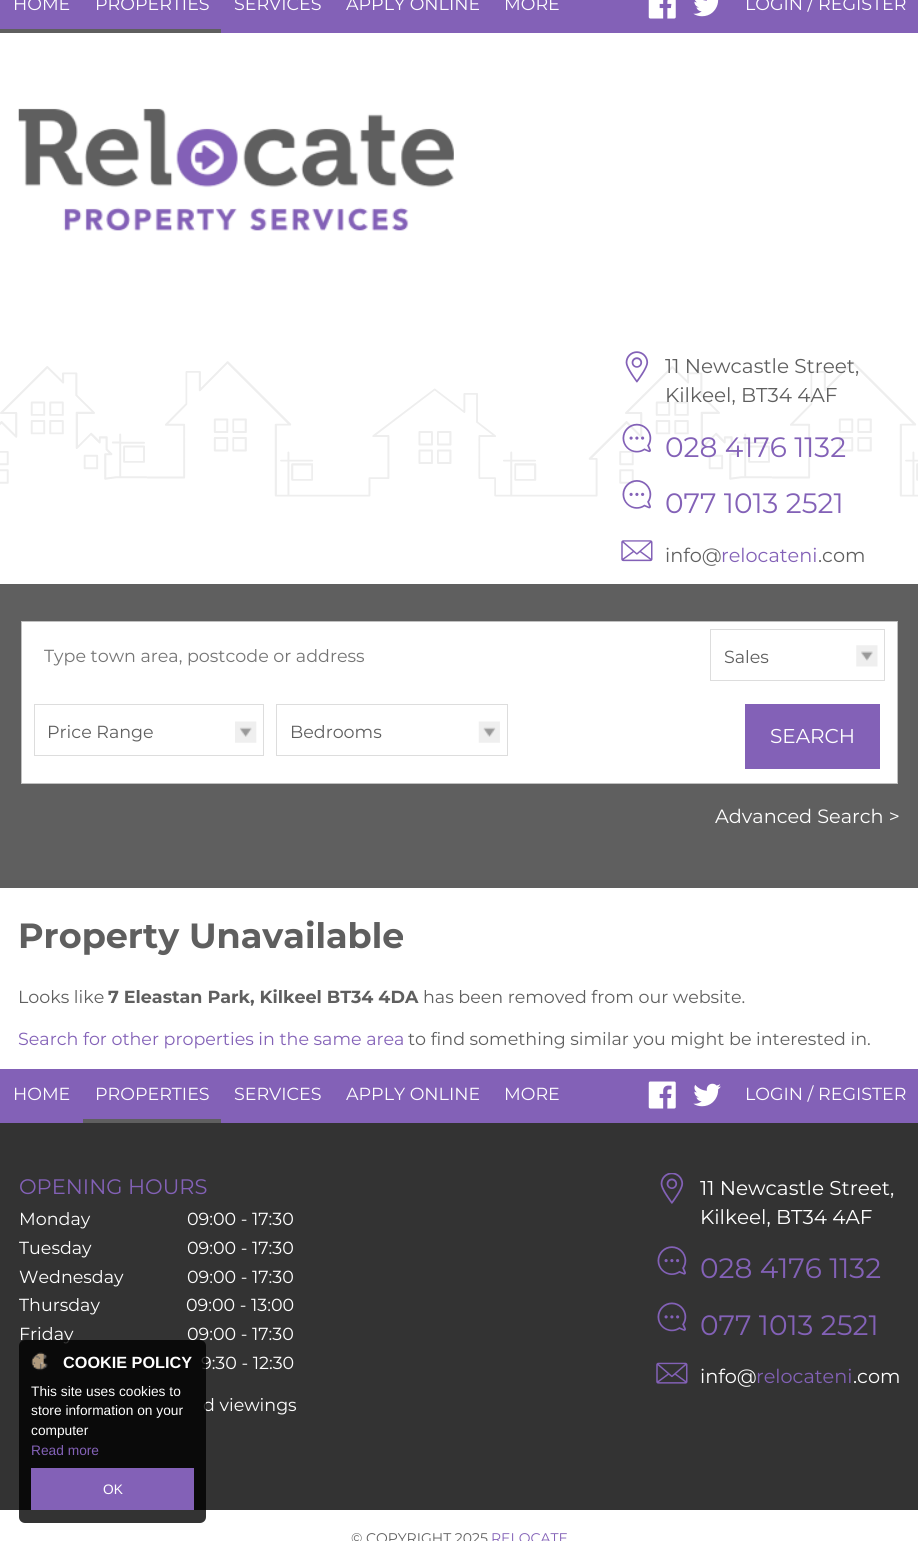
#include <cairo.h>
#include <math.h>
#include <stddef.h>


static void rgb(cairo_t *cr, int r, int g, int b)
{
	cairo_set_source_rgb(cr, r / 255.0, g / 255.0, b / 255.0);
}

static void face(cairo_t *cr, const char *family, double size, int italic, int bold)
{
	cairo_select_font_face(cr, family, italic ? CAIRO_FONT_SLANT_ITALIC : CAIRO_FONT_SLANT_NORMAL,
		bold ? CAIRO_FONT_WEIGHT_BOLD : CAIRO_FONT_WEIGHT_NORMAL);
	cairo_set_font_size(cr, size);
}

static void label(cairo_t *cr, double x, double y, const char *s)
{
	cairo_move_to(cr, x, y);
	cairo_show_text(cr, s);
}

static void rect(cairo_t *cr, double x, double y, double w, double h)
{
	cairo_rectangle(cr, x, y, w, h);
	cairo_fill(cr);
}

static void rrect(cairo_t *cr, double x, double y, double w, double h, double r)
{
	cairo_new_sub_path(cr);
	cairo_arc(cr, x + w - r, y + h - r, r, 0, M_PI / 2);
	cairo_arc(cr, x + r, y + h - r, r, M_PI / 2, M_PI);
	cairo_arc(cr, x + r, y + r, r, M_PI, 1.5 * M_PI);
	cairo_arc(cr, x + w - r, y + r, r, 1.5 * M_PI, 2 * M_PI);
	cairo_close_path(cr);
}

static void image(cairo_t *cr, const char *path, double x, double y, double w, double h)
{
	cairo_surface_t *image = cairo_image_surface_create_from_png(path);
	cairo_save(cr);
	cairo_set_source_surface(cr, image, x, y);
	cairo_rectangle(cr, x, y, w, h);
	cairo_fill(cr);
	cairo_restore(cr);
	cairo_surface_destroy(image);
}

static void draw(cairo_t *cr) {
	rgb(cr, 255, 255, 255);
	cairo_paint(cr);
	rgb(cr, 131, 97, 183);
	rect(cr, 0, 0, 918, 33);
	rgb(cr, 95, 95, 95);
	rect(cr, 0, 29, 223, 4);
	face(cr, "Montserrat", 17.5, 0, 0);
	rgb(cr, 255, 255, 255);
	label(cr, 13, 10, "HOME");
	label(cr, 95, 10, "PROPERTIES");
	rgb(cr, 131, 97, 183);
	rect(cr, 221, 29, 2, 4);
	rgb(cr, 255, 255, 255);
	label(cr, 234, 10, "SERVICES");
	label(cr, 346, 10, "APPLY ONLINE");
	label(cr, 504, 10, "MORE");
	image(cr, "image0.png", 648, 0, 28, 19);
	image(cr, "image1.png", 693, 0, 26, 17);
	label(cr, 745, 10, "LOGIN / REGISTER");
	image(cr, "image2.png", 0, 361, 918, 136);
	image(cr, "image3.png", 18, 108, 436, 123);
	image(cr, "image4.png", 625, 351, 24, 32);
	face(cr, "Montserrat", 20, 0, 0);
	rgb(cr, 95, 95, 95);
	label(cr, 665, 373, "11 Newcastle Street,");
	label(cr, 665, 402, "Kilkeel, BT34 4AF");
	image(cr, "image5.png", 622, 423, 30, 30);
	face(cr, "Montserrat", 28, 0, 0);
	rgb(cr, 131, 97, 183);
	label(cr, 665, 457, "028 4176 1132");
	image(cr, "image6.png", 622, 480, 30, 29);
	label(cr, 665, 513, "077 1013 2521");
	image(cr, "image7.png", 621, 540, 32, 22);
	face(cr, "Montserrat", 19.25, 0, 0);
	rgb(cr, 95, 95, 95);
	label(cr, 665, 562, "info@");
	rgb(cr, 131, 97, 183);
	label(cr, 721, 562, "relocateni");
	rgb(cr, 95, 95, 95);
	label(cr, 818, 562, ".com");
	rect(cr, 0, 584, 918, 304);
	rgb(cr, 255, 255, 255);
	cairo_rectangle(cr, 21.5, 621.5, 876, 162);
	cairo_fill_preserve(cr);
	rgb(cr, 192, 192, 192);
	cairo_set_line_width(cr, 1);
	cairo_stroke(cr);
	face(cr, "Montserrat", 17.5, 0, 0);
	rgb(cr, 117, 117, 117);
	label(cr, 44, 662, "Type town area, postcode or address");
	cairo_rectangle(cr, 710.5, 629.5, 174, 51);
	rgb(cr, 221, 221, 221);
	cairo_stroke(cr);
	image(cr, "image8.png", 856, 645, 22, 22);
	rgb(cr, 95, 95, 95);
	label(cr, 724, 663, "Sales");
	cairo_rectangle(cr, 34.5, 704.5, 229, 51);
	rgb(cr, 221, 221, 221);
	cairo_stroke(cr);
	image(cr, "image9.png", 235, 721, 22, 22);
	rgb(cr, 95, 95, 95);
	label(cr, 47, 738, "Price Range");
	cairo_rectangle(cr, 276.5, 704.5, 231, 51);
	rgb(cr, 221, 221, 221);
	cairo_stroke(cr);
	image(cr, "image10.png", 478, 721, 22, 22);
	rgb(cr, 95, 95, 95);
	label(cr, 290, 738, "Bedrooms");
	rgb(cr, 131, 97, 183);
	rect(cr, 745, 704, 135, 65);
	face(cr, "Montserrat", 20, 0, 0);
	rgb(cr, 255, 255, 255);
	label(cr, 770, 743, "SEARCH");
	face(cr, "Montserrat", 19.25, 0, 0);
	label(cr, 715, 823, "Advanced Search >");
	face(cr, "Montserrat", 35, 0, 1);
	rgb(cr, 95, 95, 95);
	label(cr, 18, 948, "Property Unavailable");
	face(cr, "Montserrat", 17.5, 0, 0);
	label(cr, 18, 1003, "Looks like");
	face(cr, "Montserrat", 17.5, 0, 1);
	label(cr, 108, 1003, "7 Eleastan Park, Kilkeel BT34 4DA");
	face(cr, "Montserrat", 17.5, 0, 0);
	label(cr, 423, 1003, "has been removed from our website.");
	rgb(cr, 131, 97, 183);
	label(cr, 18, 1045, "Search for other properties in the same area");
	rgb(cr, 95, 95, 95);
	label(cr, 408, 1045, "to find something similar you might be interested in.");
	rgb(cr, 131, 97, 183);
	rect(cr, 0, 1069, 918, 54);
	rgb(cr, 255, 255, 255);
	label(cr, 13, 1100, "HOME");
	rgb(cr, 95, 95, 95);
	rect(cr, 83, 1119, 140, 4);
	rgb(cr, 255, 255, 255);
	label(cr, 95, 1100, "PROPERTIES");
	rgb(cr, 131, 97, 183);
	rect(cr, 221, 1119, 2, 4);
	rgb(cr, 255, 255, 255);
	label(cr, 234, 1100, "SERVICES");
	label(cr, 346, 1100, "APPLY ONLINE");
	label(cr, 504, 1100, "MORE");
	image(cr, "image11.png", 648, 1081, 28, 28);
	image(cr, "image12.png", 693, 1083, 28, 24);
	label(cr, 745, 1100, "LOGIN / REGISTER");
	rgb(cr, 51, 51, 51);
	rect(cr, 0, 1123, 918, 387);
	face(cr, "Montserrat", 21, 0, 0);
	rgb(cr, 131, 97, 183);
	label(cr, 19, 1194, "OPENING HOURS");
	face(cr, "Montserrat", 17.5, 0, 0);
	rgb(cr, 255, 255, 255);
	label(cr, 19, 1225, "Monday");
	label(cr, 187, 1225, "09:00 - 17:30");
	label(cr, 19, 1254, "Tuesday");
	label(cr, 187, 1254, "09:00 - 17:30");
	label(cr, 19, 1283, "Wednesday");
	label(cr, 187, 1283, "09:00 - 17:30");
	label(cr, 19, 1311, "Thursday");
	label(cr, 186, 1311, "09:00 - 13:00");
	label(cr, 19, 1340, "Friday");
	label(cr, 187, 1340, "09:00 - 17:30");
	label(cr, 201, 1369, "9:30 - 12:30");
	label(cr, 203, 1411, "d viewings");
	image(cr, "image13.png", 660, 1173, 24, 31);
	face(cr, "Montserrat", 20, 0, 0);
	label(cr, 700, 1195, "11 Newcastle Street,");
	label(cr, 700, 1224, "Kilkeel, BT34 4AF");
	image(cr, "image14.png", 657, 1246, 30, 29);
	face(cr, "Montserrat", 28, 0, 0);
	rgb(cr, 131, 97, 183);
	label(cr, 700, 1278, "028 4176 1132");
	image(cr, "image15.png", 657, 1302, 30, 30);
	label(cr, 700, 1335, "077 1013 2521");
	image(cr, "image16.png", 656, 1362, 32, 22);
	face(cr, "Montserrat", 19.25, 0, 0);
	rgb(cr, 255, 255, 255);
	label(cr, 700, 1383, "info@");
	rgb(cr, 131, 97, 183);
	label(cr, 756, 1383, "relocateni");
	rgb(cr, 255, 255, 255);
	label(cr, 853, 1383, ".com");
	face(cr, "Montserrat", 14, 0, 0);
	rgb(cr, 95, 95, 95);
	label(cr, 351, 1543, "© COPYRIGHT 2025");
	rgb(cr, 131, 97, 183);
	label(cr, 491, 1543, "RELOCATE");
	cairo_set_source_rgba(cr, 0, 0, 0, 0.8);
	rrect(cr, 19, 1340, 187, 183, 6);
	cairo_fill(cr);
	image(cr, "image17.png", 31, 1352, 17, 19);
	face(cr, "Liberation Sans", 16.25, 0, 1);
	rgb(cr, 255, 255, 255);
	label(cr, 63, 1368, "COOKIE POLICY");
	face(cr, "Liberation Sans", 13.75, 0, 0);
	label(cr, 31, 1396, "This site uses cookies to");
	label(cr, 31, 1415, "store information on your");
	label(cr, 31, 1435, "computer");
	rgb(cr, 131, 97, 183);
	label(cr, 31, 1455, "Read more");
	rect(cr, 31, 1468, 163, 42);
	rgb(cr, 255, 255, 255);
	label(cr, 103, 1494, "OK");
}

int main(void) {
	cairo_surface_t *surface = cairo_image_surface_create(CAIRO_FORMAT_RGB24, 918, 1541);
	cairo_t *cr = cairo_create(surface);
	cairo_font_options_t *options = cairo_font_options_create();
	cairo_font_options_set_hint_metrics(options, CAIRO_HINT_METRICS_OFF);
	cairo_font_options_set_hint_style(options, CAIRO_HINT_STYLE_NONE);
	cairo_set_font_options(cr, options);
	cairo_set_miter_limit(cr, 4);
	draw(cr);
	cairo_surface_write_to_png(surface, "render.png");
	cairo_font_options_destroy(options);
	cairo_destroy(cr);
	cairo_surface_destroy(surface);
	return 0;
}
